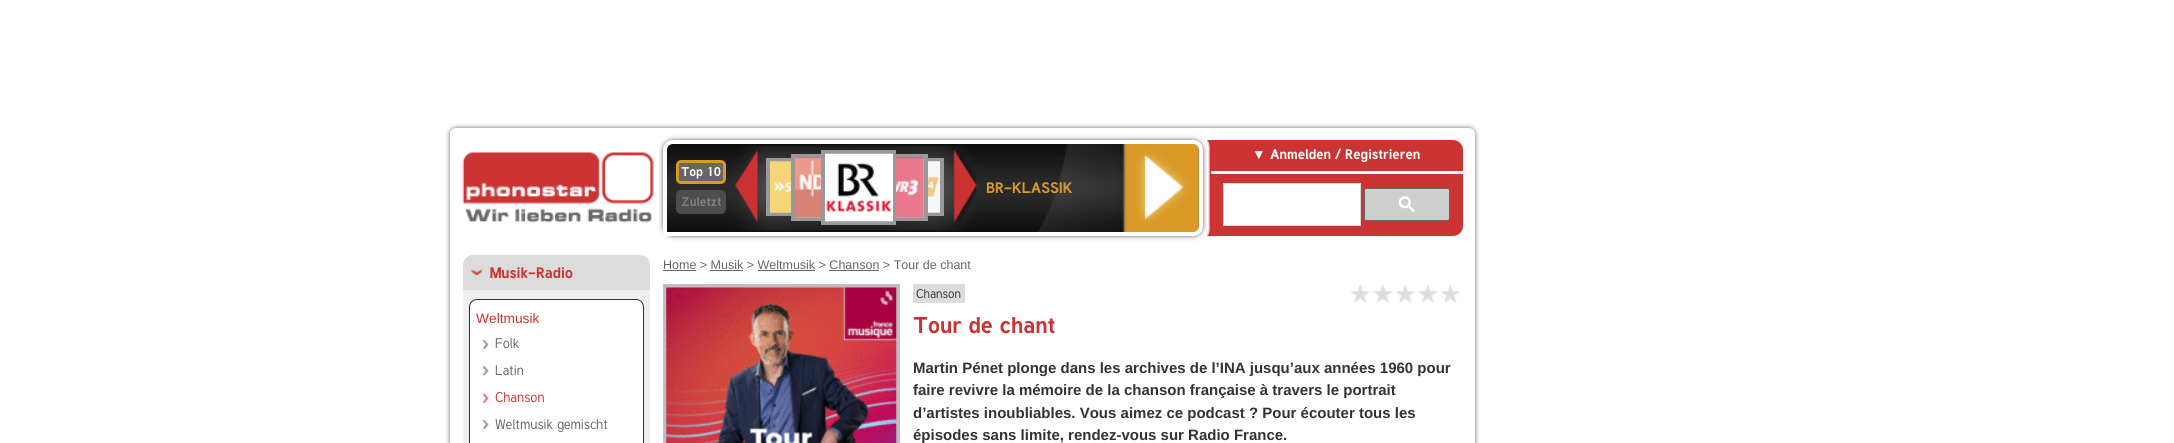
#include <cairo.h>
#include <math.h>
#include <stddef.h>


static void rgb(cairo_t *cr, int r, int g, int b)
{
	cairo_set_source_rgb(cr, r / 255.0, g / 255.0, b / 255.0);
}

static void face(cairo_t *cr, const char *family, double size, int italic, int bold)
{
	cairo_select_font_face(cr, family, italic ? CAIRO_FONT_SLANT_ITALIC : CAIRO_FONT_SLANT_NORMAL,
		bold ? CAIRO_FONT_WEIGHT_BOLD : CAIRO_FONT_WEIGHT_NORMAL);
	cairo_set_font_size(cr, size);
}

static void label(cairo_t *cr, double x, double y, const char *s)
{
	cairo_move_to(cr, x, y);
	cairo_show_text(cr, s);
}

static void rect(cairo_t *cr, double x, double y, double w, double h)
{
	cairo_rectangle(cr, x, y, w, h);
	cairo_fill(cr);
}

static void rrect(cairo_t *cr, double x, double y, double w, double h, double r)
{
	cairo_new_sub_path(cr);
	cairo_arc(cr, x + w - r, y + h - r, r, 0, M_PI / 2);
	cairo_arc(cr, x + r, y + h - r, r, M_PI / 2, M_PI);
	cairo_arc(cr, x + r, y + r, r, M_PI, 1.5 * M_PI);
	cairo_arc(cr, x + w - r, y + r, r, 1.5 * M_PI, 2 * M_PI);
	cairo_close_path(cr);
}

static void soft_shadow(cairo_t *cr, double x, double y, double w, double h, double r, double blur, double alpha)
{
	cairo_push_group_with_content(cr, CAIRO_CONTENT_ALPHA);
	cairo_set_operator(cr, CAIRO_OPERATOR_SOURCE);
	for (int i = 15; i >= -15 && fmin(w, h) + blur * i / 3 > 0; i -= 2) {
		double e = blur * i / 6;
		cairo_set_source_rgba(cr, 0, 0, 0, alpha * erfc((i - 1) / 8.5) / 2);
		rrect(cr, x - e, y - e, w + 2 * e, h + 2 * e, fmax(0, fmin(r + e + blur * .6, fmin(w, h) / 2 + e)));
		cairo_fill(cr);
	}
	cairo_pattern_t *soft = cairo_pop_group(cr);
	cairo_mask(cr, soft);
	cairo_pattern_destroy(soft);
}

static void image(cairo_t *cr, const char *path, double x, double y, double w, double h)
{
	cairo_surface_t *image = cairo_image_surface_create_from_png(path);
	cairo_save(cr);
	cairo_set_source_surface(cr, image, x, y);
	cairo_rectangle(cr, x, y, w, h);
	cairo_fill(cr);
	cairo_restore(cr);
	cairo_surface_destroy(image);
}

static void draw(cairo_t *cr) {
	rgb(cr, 255, 255, 255);
	cairo_paint(cr);
	rgb(cr, 102, 102, 102);
	soft_shadow(cr, 450, 128, 1025, 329, 6, 2.5, 1);
	rgb(cr, 255, 255, 255);
	rrect(cr, 450, 128, 1025, 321, 6);
	cairo_fill(cr);
	image(cr, "image0.png", 462, 152, 192, 71);
	rgb(cr, 102, 102, 102);
	soft_shadow(cr, 663, 140, 540, 96, 10, 2.5, 1);
	image(cr, "image1.png", 666, 140, 533, 97);
	cairo_new_path(cr);
	cairo_move_to(cr, 673, 142);
	cairo_line_to(cr, 1193, 142);
	cairo_curve_to(cr, 1197.5, 142, 1201, 145.5, 1201, 150);
	cairo_line_to(cr, 1201, 226);
	cairo_curve_to(cr, 1201, 230.5, 1197.5, 234, 1193, 234);
	cairo_line_to(cr, 665, 234);
	cairo_line_to(cr, 665, 150);
	cairo_curve_to(cr, 665, 145.5, 668.5, 142, 673, 142);
	cairo_close_path(cr);
	rgb(cr, 255, 255, 255);
	cairo_set_line_width(cr, 4);
	cairo_stroke(cr);
	rgb(cr, 102, 102, 102);
	rrect(cr, 677.5, 161.5, 47, 21, 3.5);
	cairo_fill_preserve(cr);
	rgb(cr, 218, 153, 37);
	cairo_set_line_width(cr, 3);
	cairo_stroke(cr);
	face(cr, "Tuffy", 12.5, 0, 1);
	rgb(cr, 255, 255, 255);
	label(cr, 681, 176, "Top 10");
	rgb(cr, 77, 77, 77);
	rrect(cr, 677.5, 191.5, 47, 21, 3.5);
	cairo_fill_preserve(cr);
	cairo_stroke(cr);
	rgb(cr, 128, 128, 128);
	label(cr, 681, 206, "Zuletzt");
	image(cr, "image2.png", 735, 150, 23, 72);
	rgb(cr, 220, 220, 220);
	rect(cr, 770, 162, 21, 50);
	cairo_rectangle(cr, 768, 160, 55, 54);
	rgb(cr, 153, 153, 153);
	cairo_set_line_width(cr, 4);
	cairo_stroke(cr);
	rgb(cr, 220, 220, 220);
	rect(cr, 795, 158, 26, 59);
	cairo_rectangle(cr, 793, 156, 64, 63);
	rgb(cr, 153, 153, 153);
	cairo_stroke(cr);
	rgb(cr, 220, 220, 220);
	rect(cr, 928, 162, 12, 50);
	cairo_rectangle(cr, 887, 160, 55, 54);
	rgb(cr, 153, 153, 153);
	cairo_stroke(cr);
	rgb(cr, 220, 220, 220);
	rect(cr, 896, 158, 28, 59);
	cairo_rectangle(cr, 862, 156, 64, 63);
	rgb(cr, 153, 153, 153);
	cairo_stroke(cr);
	cairo_rectangle(cr, 823, 152, 71, 71);
	cairo_stroke(cr);
	rgb(cr, 255, 255, 255);
	rect(cr, 892, 154, 1, 67);
	image(cr, "image3.png", 825, 153, 68, 69);
	cairo_set_source_rgba(cr, 1, 1, 1, 0.5);
	rect(cr, 795, 158, 26, 60);
	image(cr, "image4.png", 795, 157, 26, 61);
	rect(cr, 896, 158, 28, 60);
	image(cr, "image5.png", 896, 157, 28, 61);
	rect(cr, 770, 161, 21, 52);
	image(cr, "image6.png", 770, 161, 21, 52);
	rect(cr, 928, 161, 12, 52);
	image(cr, "image7.png", 928, 161, 12, 52);
	image(cr, "image8.png", 953, 150, 24, 73);
	face(cr, "Tuffy", 15, 0, 1);
	rgb(cr, 218, 153, 37);
	label(cr, 986, 193, "BR-KLASSIK");
	rgb(cr, 204, 51, 51);
	cairo_new_path(cr);
	cairo_move_to(cr, 1210, 140);
	cairo_line_to(cr, 1453, 140);
	cairo_curve_to(cr, 1458.5, 140, 1463, 144.5, 1463, 150);
	cairo_line_to(cr, 1463, 226);
	cairo_curve_to(cr, 1463, 231.5, 1458.5, 236, 1453, 236);
	cairo_line_to(cr, 1210, 236);
	cairo_close_path(cr);
	cairo_fill(cr);
	rgb(cr, 255, 255, 255);
	rect(cr, 1210, 171, 253, 3);
	image(cr, "image9.png", 1207, 140, 5, 97);
	face(cr, "Liberation Sans", 13.75, 0, 0);
	label(cr, 1252, 159, "▼");
	face(cr, "Tuffy", 13.75, 0, 1);
	label(cr, 1270, 159, "Anmelden / Registrieren");
	cairo_rectangle(cr, 1223.5, 183.5, 137, 42);
	cairo_fill_preserve(cr);
	rgb(cr, 217, 217, 217);
	cairo_set_line_width(cr, 1);
	cairo_stroke(cr);
	rgb(cr, 206, 206, 206);
	rrect(cr, 1364.5, 188.5, 85, 32, 2);
	cairo_fill_preserve(cr);
	rgb(cr, 102, 102, 102);
	cairo_stroke(cr);
	image(cr, "image10.png", 1399, 196, 16, 17);
	rgb(cr, 220, 220, 220);
	cairo_new_path(cr);
	cairo_move_to(cr, 473, 255);
	cairo_line_to(cr, 640, 255);
	cairo_curve_to(cr, 645.5, 255, 650, 259.5, 650, 265);
	cairo_line_to(cr, 650, 443);
	cairo_curve_to(cr, 650, 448.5, 645.5, 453, 640, 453);
	cairo_line_to(cr, 463, 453);
	cairo_line_to(cr, 463, 265);
	cairo_curve_to(cr, 463, 259.5, 467.5, 255, 473, 255);
	cairo_close_path(cr);
	cairo_fill(cr);
	image(cr, "image11.png", 471, 269, 12, 7);
	face(cr, "Tuffy", 15, 0, 1);
	rgb(cr, 204, 51, 51);
	label(cr, 490, 278, "Musik-Radio");
	rgb(cr, 239, 239, 239);
	rect(cr, 463, 290, 187, 153);
	rgb(cr, 255, 255, 255);
	rrect(cr, 469.5, 299.5, 174, 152, 7.5);
	cairo_fill_preserve(cr);
	rgb(cr, 51, 51, 51);
	cairo_stroke(cr);
	face(cr, "Liberation Sans", 13.75, 0, 0);
	rgb(cr, 204, 51, 51);
	label(cr, 476, 323, "Weltmusik");
	image(cr, "image12.png", 482, 340, 7, 10);
	face(cr, "Tuffy", 13.75, 0, 0);
	rgb(cr, 102, 102, 102);
	label(cr, 495, 348, "Folk");
	image(cr, "image13.png", 482, 366, 7, 10);
	label(cr, 495, 375, "Latin");
	image(cr, "image14.png", 482, 393, 7, 11);
	rgb(cr, 204, 51, 51);
	label(cr, 495, 402, "Chanson");
	image(cr, "image12.png", 482, 420, 7, 10);
	rgb(cr, 102, 102, 102);
	label(cr, 495, 429, "Weltmusik gemischt");
	face(cr, "Liberation Sans", 12.5, 0, 0);
	label(cr, 663, 269, "Home > Musik > Weltmusik > Chanson > Tour de chant");
	rect(cr, 663, 270, 33, 1);
	rect(cr, 710, 270, 33, 1);
	rect(cr, 758, 270, 57, 1);
	rect(cr, 829, 270, 50, 1);
	cairo_rectangle(cr, 665, 286, 233, 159);
	rgb(cr, 188, 190, 192);
	cairo_set_line_width(cr, 4);
	cairo_stroke(cr);
	image(cr, "image15.png", 666, 287, 231, 156);
	rgb(cr, 220, 220, 220);
	rect(cr, 913, 284, 52, 19);
	face(cr, "Tuffy", 12.5, 0, 0);
	rgb(cr, 51, 51, 51);
	label(cr, 916, 298, "Chanson");
	face(cr, "Tuffy", 22.5, 0, 1);
	rgb(cr, 204, 51, 51);
	label(cr, 913, 333, "Tour de chant");
	image(cr, "image16.png", 1351, 284, 19, 19);
	image(cr, "image17.png", 1373, 284, 20, 19);
	image(cr, "image16.png", 1396, 284, 19, 19);
	image(cr, "image17.png", 1418, 284, 20, 19);
	image(cr, "image16.png", 1441, 284, 19, 19);
	face(cr, "Liberation Sans", 15, 0, 1);
	rgb(cr, 51, 51, 51);
	label(cr, 913, 373, "Martin Pénet plonge dans les archives de l’INA jusqu’aux années 1960 pour");
	label(cr, 913, 395, "faire revivre la mémoire de la chanson française à travers le portrait");
	label(cr, 913, 418, "d’artistes inoubliables. Vous aimez ce podcast ? Pour écouter tous les");
	label(cr, 913, 440, "épisodes sans limite, rendez-vous sur Radio France.");
}

int main(void) {
	cairo_surface_t *surface = cairo_image_surface_create(CAIRO_FORMAT_RGB24, 2174, 443);
	cairo_t *cr = cairo_create(surface);
	cairo_font_options_t *options = cairo_font_options_create();
	cairo_font_options_set_hint_metrics(options, CAIRO_HINT_METRICS_OFF);
	cairo_font_options_set_hint_style(options, CAIRO_HINT_STYLE_NONE);
	cairo_set_font_options(cr, options);
	cairo_set_miter_limit(cr, 4);
	draw(cr);
	cairo_surface_write_to_png(surface, "render.png");
	cairo_font_options_destroy(options);
	cairo_destroy(cr);
	cairo_surface_destroy(surface);
	return 0;
}
